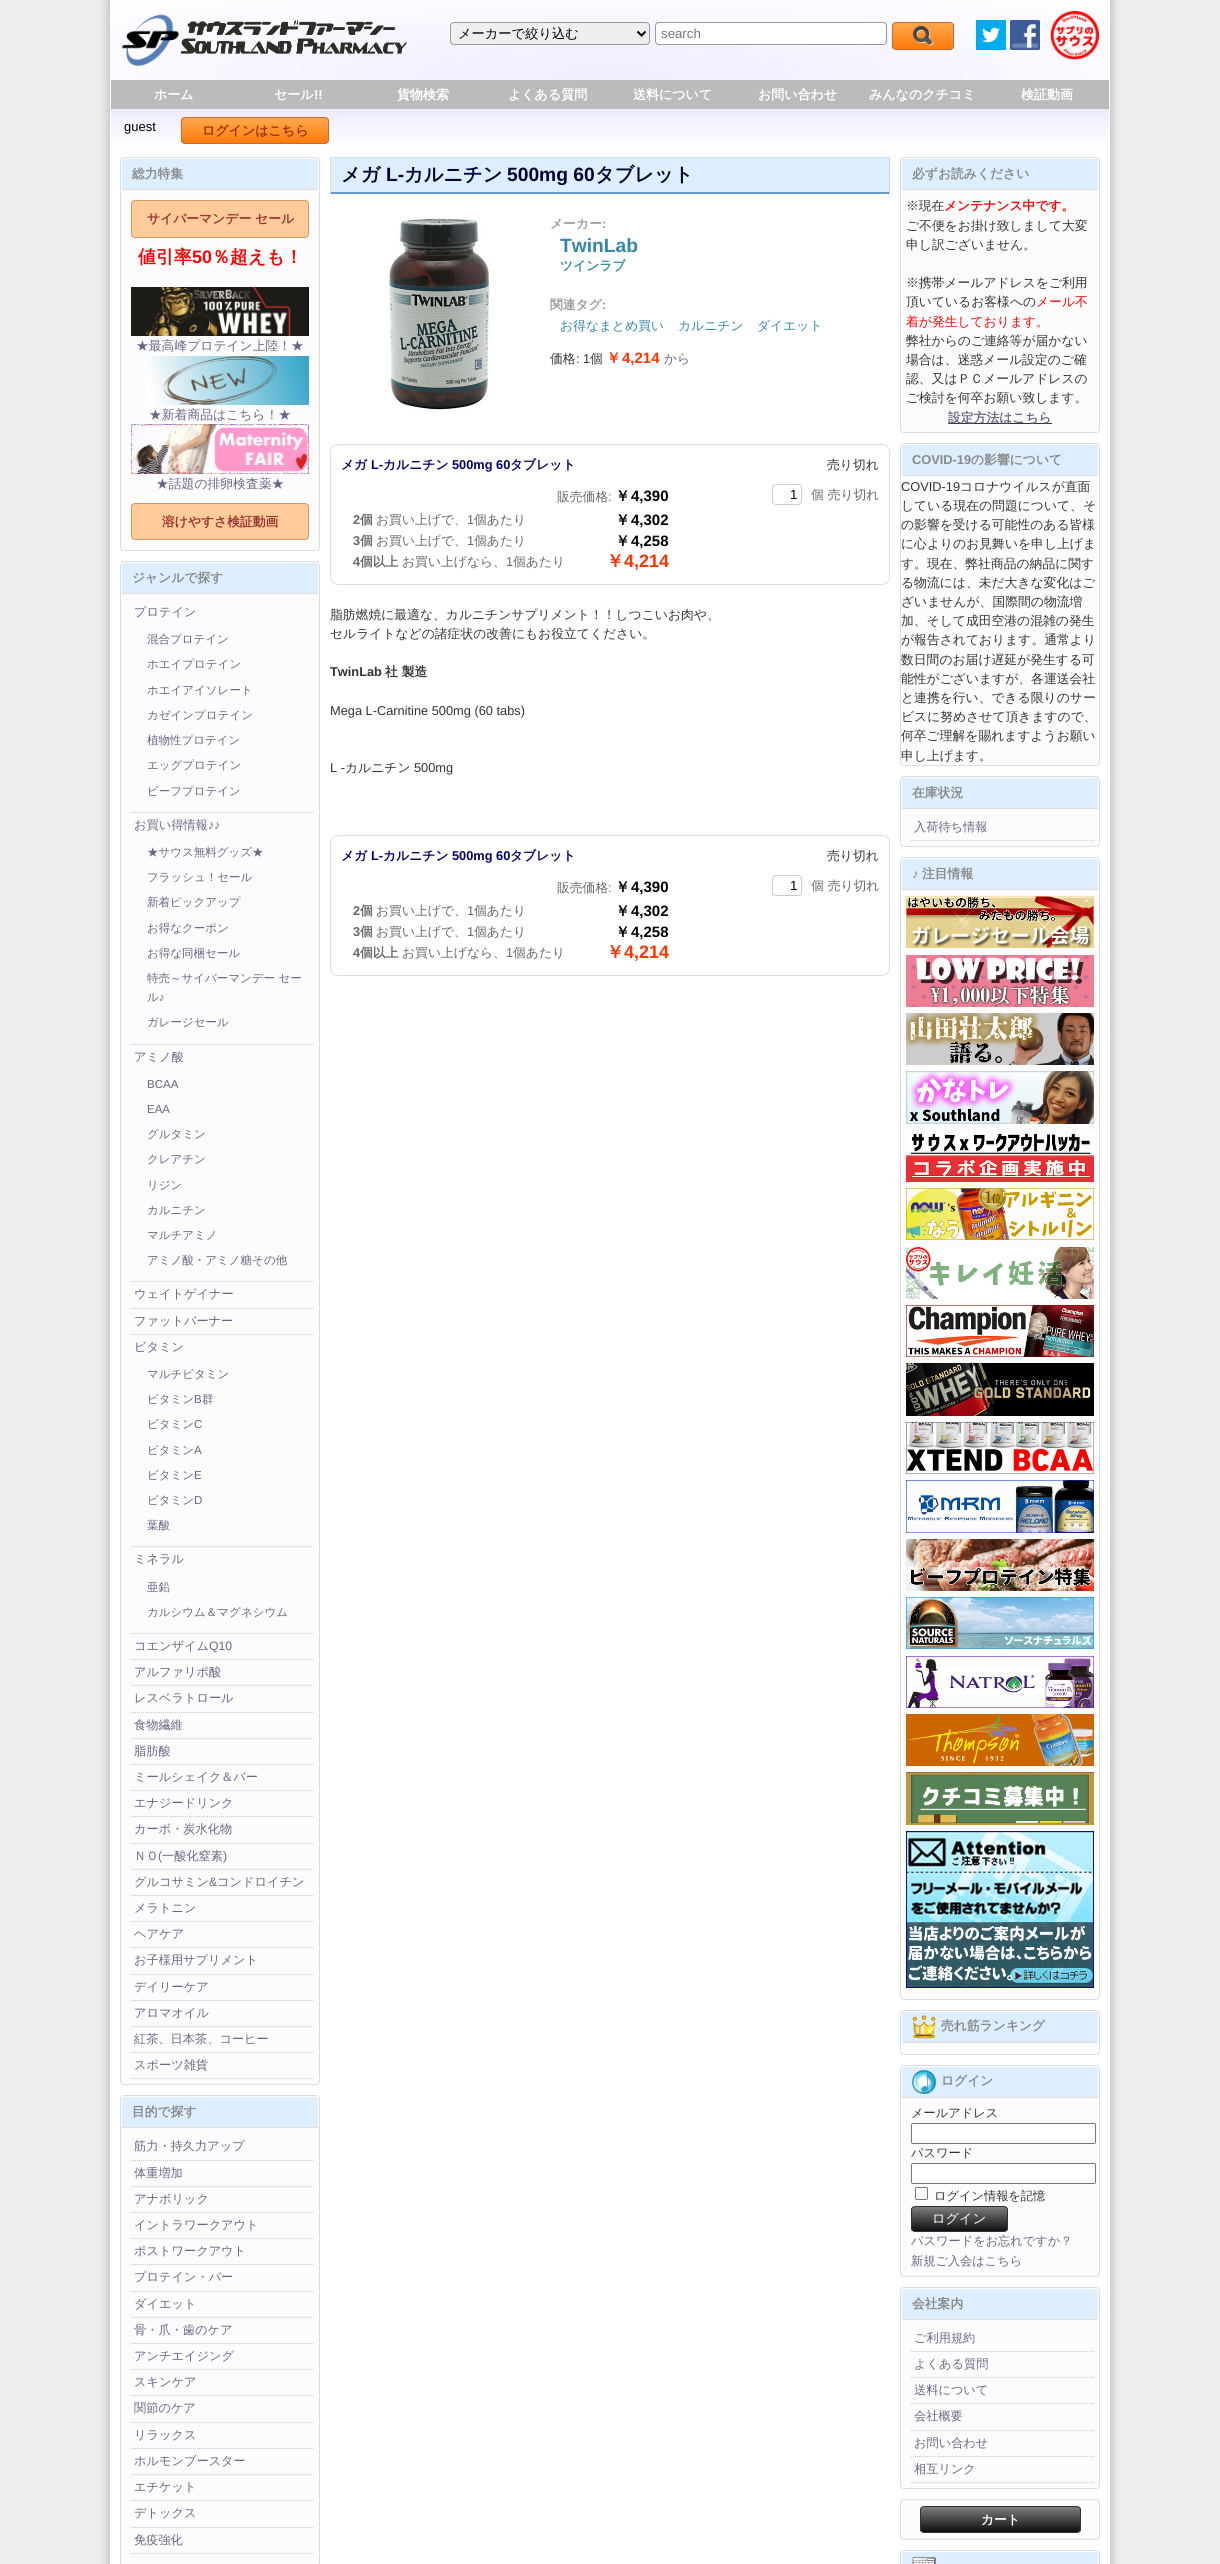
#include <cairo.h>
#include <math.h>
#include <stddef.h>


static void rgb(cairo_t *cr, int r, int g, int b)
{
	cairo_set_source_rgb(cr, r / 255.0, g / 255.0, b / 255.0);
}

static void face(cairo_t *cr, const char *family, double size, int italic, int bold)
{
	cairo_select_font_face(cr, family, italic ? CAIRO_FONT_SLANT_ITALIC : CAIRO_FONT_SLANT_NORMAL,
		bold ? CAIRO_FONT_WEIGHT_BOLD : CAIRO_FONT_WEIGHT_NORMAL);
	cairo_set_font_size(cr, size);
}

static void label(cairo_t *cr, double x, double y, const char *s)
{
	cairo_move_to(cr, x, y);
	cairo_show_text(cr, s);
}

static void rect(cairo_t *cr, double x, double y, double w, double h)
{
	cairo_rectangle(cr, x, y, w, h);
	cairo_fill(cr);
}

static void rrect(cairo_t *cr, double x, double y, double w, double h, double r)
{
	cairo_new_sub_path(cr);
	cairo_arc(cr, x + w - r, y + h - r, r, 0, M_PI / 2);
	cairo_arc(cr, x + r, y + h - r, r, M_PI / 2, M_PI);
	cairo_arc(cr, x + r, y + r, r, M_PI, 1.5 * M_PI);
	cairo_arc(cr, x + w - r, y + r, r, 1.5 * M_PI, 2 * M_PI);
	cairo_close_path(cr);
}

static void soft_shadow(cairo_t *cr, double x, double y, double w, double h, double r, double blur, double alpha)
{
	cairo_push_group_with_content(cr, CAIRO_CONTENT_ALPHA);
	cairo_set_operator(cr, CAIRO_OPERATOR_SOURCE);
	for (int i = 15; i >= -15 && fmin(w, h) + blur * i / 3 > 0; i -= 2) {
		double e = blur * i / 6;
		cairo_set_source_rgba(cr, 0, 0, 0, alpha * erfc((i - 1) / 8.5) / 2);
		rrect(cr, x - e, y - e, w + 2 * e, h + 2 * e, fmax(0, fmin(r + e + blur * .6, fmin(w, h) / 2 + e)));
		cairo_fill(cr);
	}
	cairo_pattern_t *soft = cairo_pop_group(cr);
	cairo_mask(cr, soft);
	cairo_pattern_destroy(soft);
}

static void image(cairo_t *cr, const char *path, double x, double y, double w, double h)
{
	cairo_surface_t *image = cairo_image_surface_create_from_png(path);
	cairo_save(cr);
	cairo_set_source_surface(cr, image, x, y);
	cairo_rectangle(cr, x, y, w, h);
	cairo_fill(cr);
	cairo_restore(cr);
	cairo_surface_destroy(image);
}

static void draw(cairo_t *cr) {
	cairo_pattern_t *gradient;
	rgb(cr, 238, 238, 238);
	cairo_paint(cr);
	rgb(cr, 187, 187, 187);
	soft_shadow(cr, 108, -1, 1004, 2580, 0, 5, 1);
	rgb(cr, 204, 204, 204);
	rect(cr, 1110, 0, 1, 12);
	rect(cr, 109, 0, 1, 12);
	gradient = cairo_pattern_create_radial(0, 0, 0, 0, 0, 1);
	cairo_pattern_set_matrix(gradient, &(cairo_matrix_t){1.0 / 707, 0, 0, 1.0 / 104, -1.0 * 610 / 707, -1.0 * 74 / 104});
	cairo_pattern_add_color_stop_rgba(gradient, 0, 0.933, 0.933, 1, 1);
	cairo_pattern_add_color_stop_rgba(gradient, 1, 1, 1, 1, 1);
	cairo_set_source(cr, gradient);
	cairo_pattern_destroy(gradient);
	rect(cr, 110, 0, 1000, 147);
	image(cr, "image0.png", 121, 14, 59, 52);
	image(cr, "image1.png", 180, 20, 227, 34);
	rgb(cr, 239, 239, 239);
	rrect(cr, 450.5, 22.5, 199, 22, 3.5);
	cairo_fill_preserve(cr);
	rgb(cr, 153, 153, 153);
	cairo_set_line_width(cr, 1);
	cairo_stroke(cr);
	cairo_new_path(cr);
	cairo_move_to(cr, 637.5, 31.5);
	cairo_line_to(cr, 641.5, 35.5);
	cairo_line_to(cr, 645.5, 31.5);
	rgb(cr, 0, 0, 0);
	cairo_set_line_width(cr, 2);
	cairo_stroke(cr);
	face(cr, "WenQuanYi Zen Hei Medium", 13.25, 0, 0);
	label(cr, 458, 38, "メーカーで絞り込む");
	rgb(cr, 255, 255, 255);
	rrect(cr, 655.5, 22.5, 231, 22, 3.5);
	cairo_fill_preserve(cr);
	rgb(cr, 153, 153, 153);
	cairo_set_line_width(cr, 1);
	cairo_stroke(cr);
	face(cr, "Liberation Sans", 13.25, 0, 0);
	rgb(cr, 117, 117, 117);
	label(cr, 661, 38, "search");
	cairo_save(cr);
	rrect(cr, 892, 22, 62, 28, 4);
	cairo_clip(cr);
	gradient = cairo_pattern_create_linear(923, 23, 923, 49);
	cairo_pattern_add_color_stop_rgba(gradient, 0, 1, 0.659, 0.298, 1);
	cairo_pattern_add_color_stop_rgba(gradient, 1, 1, 0.482, 0.051, 1);
	cairo_set_source(cr, gradient);
	cairo_pattern_destroy(gradient);
	rect(cr, 892, 23, 62, 26);
	cairo_restore(cr);
	rrect(cr, 892.5, 22.5, 61, 27, 3.5);
	rgb(cr, 204, 102, 51);
	cairo_stroke(cr);
	image(cr, "image2.png", 913, 26, 20, 20);
	image(cr, "image3.png", 976, 20, 30, 30);
	image(cr, "image4.png", 1010, 20, 30, 30);
	image(cr, "image5.png", 1050, 11, 50, 49);
	rgb(cr, 187, 187, 187);
	rect(cr, 111, 80, 998, 29);
	face(cr, "WenQuanYi Zen Hei", 13, 0, 1);
	rgb(cr, 255, 255, 255);
	label(cr, 154, 99, "ホーム");
	label(cr, 274, 99, "セール");
	face(cr, "Liberation Sans", 13, 0, 1);
	label(cr, 314, 99, "!!");
	face(cr, "WenQuanYi Zen Hei", 13, 0, 1);
	label(cr, 397, 99, "貨物検索");
	label(cr, 508, 99, "よくある質問");
	label(cr, 633, 99, "送料について");
	label(cr, 758, 99, "お問い合わせ");
	label(cr, 869, 99, "みんなのクチコミ");
	label(cr, 1021, 99, "検証動画");
	gradient = cairo_pattern_create_linear(610, 109, 610, 147);
	cairo_pattern_add_color_stop_rgba(gradient, 0, 0.922, 0.922, 1, 1);
	cairo_pattern_add_color_stop_rgba(gradient, 1, 0.996, 1, 1, 1);
	cairo_set_source(cr, gradient);
	cairo_pattern_destroy(gradient);
	rect(cr, 111, 109, 998, 38);
	face(cr, "Liberation Sans", 13, 0, 0);
	rgb(cr, 0, 0, 0);
	label(cr, 124, 131, "guest");
	cairo_save(cr);
	rrect(cr, 181, 117, 148, 27, 4);
	cairo_clip(cr);
	gradient = cairo_pattern_create_linear(255, 118, 255, 143);
	cairo_pattern_add_color_stop_rgba(gradient, 0, 1, 0.659, 0.298, 1);
	cairo_pattern_add_color_stop_rgba(gradient, 1, 1, 0.482, 0.051, 1);
	cairo_set_source(cr, gradient);
	cairo_pattern_destroy(gradient);
	rect(cr, 181, 118, 148, 25);
	cairo_restore(cr);
	rrect(cr, 181.5, 117.5, 147, 26, 3.5);
	rgb(cr, 204, 102, 51);
	cairo_stroke(cr);
	face(cr, "WenQuanYi Zen Hei", 13, 0, 1);
	rgb(cr, 153, 51, 0);
	label(cr, 202, 135, "ログインはこちら");
	rgb(cr, 255, 255, 255);
	rect(cr, 110, 147, 1000, 2417);
	rgb(cr, 252, 252, 252);
	rrect(cr, 120.5, 157.5, 199, 393, 3.5);
	cairo_fill_preserve(cr);
	rgb(cr, 221, 221, 221);
	cairo_stroke(cr);
	rgb(cr, 221, 238, 255);
	cairo_new_path(cr);
	cairo_move_to(cr, 124, 159);
	cairo_line_to(cr, 316, 159);
	cairo_curve_to(cr, 317, 159, 318, 160, 318, 161);
	cairo_line_to(cr, 318, 190);
	cairo_line_to(cr, 122, 190);
	cairo_line_to(cr, 122, 161);
	cairo_curve_to(cr, 122, 160, 123, 159, 124, 159);
	cairo_close_path(cr);
	cairo_fill(cr);
	rgb(cr, 221, 221, 221);
	rect(cr, 122, 189, 196, 1);
	face(cr, "WenQuanYi Zen Hei", 12.8, 0, 1);
	rgb(cr, 136, 136, 136);
	label(cr, 132, 178, "総力特集");
	rgb(cr, 255, 204, 153);
	rrect(cr, 131.5, 200.5, 177, 37, 3.5);
	cairo_fill_preserve(cr);
	rgb(cr, 204, 153, 102);
	cairo_stroke(cr);
	rgb(cr, 153, 51, 51);
	label(cr, 147, 223, "サイバーマンデー セール");
	face(cr, "WenQuanYi Zen Hei", 18, 0, 1);
	rgb(cr, 255, 0, 0);
	label(cr, 138, 263, "値引率");
	face(cr, "Liberation Sans", 18, 0, 1);
	label(cr, 192, 263, "50");
	face(cr, "WenQuanYi Zen Hei", 18, 0, 1);
	label(cr, 212, 263, "％超えも！");
	image(cr, "image6.png", 131, 287, 178, 49);
	face(cr, "WenQuanYi Zen Hei Medium", 12.8, 0, 0);
	rgb(cr, 102, 102, 136);
	label(cr, 136, 350, "★最高峰プロテイン上陸！★");
	image(cr, "image7.png", 147, 356, 162, 49);
	label(cr, 149, 419, "★新着商品はこちら！★");
	image(cr, "image8.png", 131, 424, 178, 50);
	label(cr, 156, 488, "★話題の排卵検査薬★");
	rgb(cr, 255, 204, 153);
	rrect(cr, 131.5, 503.5, 177, 36, 3.5);
	cairo_fill_preserve(cr);
	rgb(cr, 204, 153, 102);
	cairo_stroke(cr);
	face(cr, "WenQuanYi Zen Hei", 12.8, 0, 1);
	rgb(cr, 153, 51, 51);
	label(cr, 162, 526, "溶けやすさ検証動画");
	rgb(cr, 252, 252, 252);
	rrect(cr, 120.5, 561.5, 199, 1523, 3.5);
	cairo_fill_preserve(cr);
	rgb(cr, 221, 221, 221);
	cairo_stroke(cr);
	rgb(cr, 221, 238, 255);
	cairo_new_path(cr);
	cairo_move_to(cr, 124, 563);
	cairo_line_to(cr, 316, 563);
	cairo_curve_to(cr, 317, 563, 318, 564, 318, 565);
	cairo_line_to(cr, 318, 594);
	cairo_line_to(cr, 122, 594);
	cairo_line_to(cr, 122, 565);
	cairo_curve_to(cr, 122, 564, 123, 563, 124, 563);
	cairo_close_path(cr);
	cairo_fill(cr);
	rgb(cr, 221, 221, 221);
	rect(cr, 122, 593, 196, 1);
	rgb(cr, 136, 136, 136);
	label(cr, 132, 582, "ジャンルで探す");
	cairo_new_path(cr);
	cairo_move_to(cr, 131, 812.5);
	cairo_line_to(cr, 314, 812.5);
	rgb(cr, 204, 204, 204);
	cairo_set_dash(cr, (double[]){1, 1}, 2, 0);
	cairo_stroke(cr);
	face(cr, "WenQuanYi Zen Hei Medium", 12.2, 0, 0);
	rgb(cr, 102, 102, 136);
	label(cr, 134, 616, "プロテイン");
	face(cr, "WenQuanYi Zen Hei Medium", 11.5, 0, 0);
	label(cr, 147, 643, "混合プロテイン");
	label(cr, 147, 668, "ホエイプロテイン");
	label(cr, 147, 694, "ホエイアイソレート");
	label(cr, 147, 719, "カゼインプロテイン");
	label(cr, 147, 744, "植物性プロテイン");
	label(cr, 147, 769, "エッグプロテイン");
	label(cr, 147, 795, "ビーフプロテイン");
	cairo_new_path(cr);
	cairo_move_to(cr, 131, 1044.5);
	cairo_line_to(cr, 314, 1044.5);
	rgb(cr, 204, 204, 204);
	cairo_stroke(cr);
	face(cr, "WenQuanYi Zen Hei Medium", 12.2, 0, 0);
	rgb(cr, 102, 102, 136);
	label(cr, 134, 829, "お買い得情報");
	face(cr, "Liberation Sans", 12.2, 0, 0);
	label(cr, 208, 829, "♪♪");
	face(cr, "WenQuanYi Zen Hei Medium", 11.5, 0, 0);
	label(cr, 147, 856, "★サウス無料グッズ★");
	label(cr, 147, 881, "フラッシュ！セール");
	label(cr, 147, 906, "新着ピックアップ");
	label(cr, 147, 932, "お得なクーポン");
	label(cr, 147, 957, "お得な同梱セール");
	label(cr, 147, 982, "特売～サイバーマンデー セー");
	label(cr, 147, 1001, "ル");
	face(cr, "Liberation Sans", 11.5, 0, 0);
	label(cr, 159, 1001, "♪");
	face(cr, "WenQuanYi Zen Hei Medium", 11.5, 0, 0);
	label(cr, 147, 1026, "ガレージセール");
	cairo_new_path(cr);
	cairo_move_to(cr, 131, 1281.5);
	cairo_line_to(cr, 314, 1281.5);
	rgb(cr, 204, 204, 204);
	cairo_stroke(cr);
	face(cr, "WenQuanYi Zen Hei Medium", 12.2, 0, 0);
	rgb(cr, 102, 102, 136);
	label(cr, 134, 1061, "アミノ酸");
	face(cr, "Liberation Sans", 11.5, 0, 0);
	label(cr, 147, 1088, "BCAA");
	label(cr, 147, 1113, "EAA");
	face(cr, "WenQuanYi Zen Hei Medium", 11.5, 0, 0);
	label(cr, 147, 1138, "グルタミン");
	label(cr, 147, 1163, "クレアチン");
	label(cr, 147, 1189, "リジン");
	label(cr, 147, 1214, "カルニチン");
	label(cr, 147, 1239, "マルチアミノ");
	label(cr, 147, 1264, "アミノ酸・アミノ糖その他");
	cairo_new_path(cr);
	cairo_move_to(cr, 131, 1308.5);
	cairo_line_to(cr, 314, 1308.5);
	rgb(cr, 204, 204, 204);
	cairo_stroke(cr);
	face(cr, "WenQuanYi Zen Hei Medium", 12.2, 0, 0);
	rgb(cr, 102, 102, 136);
	label(cr, 134, 1298, "ウェイトゲイナー");
	cairo_new_path(cr);
	cairo_move_to(cr, 131, 1334.5);
	cairo_line_to(cr, 314, 1334.5);
	rgb(cr, 204, 204, 204);
	cairo_stroke(cr);
	rgb(cr, 102, 102, 136);
	label(cr, 134, 1325, "ファットバーナー");
	cairo_new_path(cr);
	cairo_move_to(cr, 131, 1546.5);
	cairo_line_to(cr, 314, 1546.5);
	rgb(cr, 204, 204, 204);
	cairo_stroke(cr);
	rgb(cr, 102, 102, 136);
	label(cr, 134, 1351, "ビタミン");
	face(cr, "WenQuanYi Zen Hei Medium", 11.5, 0, 0);
	label(cr, 147, 1378, "マルチビタミン");
	label(cr, 147, 1403, "ビタミン");
	face(cr, "Liberation Sans", 11.5, 0, 0);
	label(cr, 194, 1403, "B");
	face(cr, "WenQuanYi Zen Hei Medium", 11.5, 0, 0);
	label(cr, 202, 1403, "群");
	label(cr, 147, 1428, "ビタミン");
	face(cr, "Liberation Sans", 11.5, 0, 0);
	label(cr, 194, 1428, "C");
	face(cr, "WenQuanYi Zen Hei Medium", 11.5, 0, 0);
	label(cr, 147, 1454, "ビタミン");
	face(cr, "Liberation Sans", 11.5, 0, 0);
	label(cr, 194, 1454, "A");
	face(cr, "WenQuanYi Zen Hei Medium", 11.5, 0, 0);
	label(cr, 147, 1479, "ビタミン");
	face(cr, "Liberation Sans", 11.5, 0, 0);
	label(cr, 194, 1479, "E");
	face(cr, "WenQuanYi Zen Hei Medium", 11.5, 0, 0);
	label(cr, 147, 1504, "ビタミン");
	face(cr, "Liberation Sans", 11.5, 0, 0);
	label(cr, 194, 1504, "D");
	face(cr, "WenQuanYi Zen Hei Medium", 11.5, 0, 0);
	label(cr, 147, 1529, "葉酸");
	cairo_new_path(cr);
	cairo_move_to(cr, 131, 1633.5);
	cairo_line_to(cr, 314, 1633.5);
	rgb(cr, 204, 204, 204);
	cairo_stroke(cr);
	face(cr, "WenQuanYi Zen Hei Medium", 12.2, 0, 0);
	rgb(cr, 102, 102, 136);
	label(cr, 134, 1563, "ミネラル");
	face(cr, "WenQuanYi Zen Hei Medium", 11.5, 0, 0);
	label(cr, 147, 1591, "亜鉛");
	label(cr, 147, 1616, "カルシウム＆マグネシウム");
	cairo_new_path(cr);
	cairo_move_to(cr, 131, 1659.5);
	cairo_line_to(cr, 314, 1659.5);
	rgb(cr, 204, 204, 204);
	cairo_stroke(cr);
	face(cr, "WenQuanYi Zen Hei Medium", 12.2, 0, 0);
	rgb(cr, 102, 102, 136);
	label(cr, 134, 1650, "コエンザイム");
	face(cr, "Liberation Sans", 12.2, 0, 0);
	label(cr, 209, 1650, "Q10");
	cairo_new_path(cr);
	cairo_move_to(cr, 131, 1685.5);
	cairo_line_to(cr, 314, 1685.5);
	rgb(cr, 204, 204, 204);
	cairo_stroke(cr);
	face(cr, "WenQuanYi Zen Hei Medium", 12.2, 0, 0);
	rgb(cr, 102, 102, 136);
	label(cr, 134, 1676, "アルファリポ酸");
	cairo_new_path(cr);
	cairo_move_to(cr, 131, 1712.5);
	cairo_line_to(cr, 314, 1712.5);
	rgb(cr, 204, 204, 204);
	cairo_stroke(cr);
	rgb(cr, 102, 102, 136);
	label(cr, 134, 1702, "レスベラトロール");
	cairo_new_path(cr);
	cairo_move_to(cr, 131, 1738.5);
	cairo_line_to(cr, 314, 1738.5);
	rgb(cr, 204, 204, 204);
	cairo_stroke(cr);
	rgb(cr, 102, 102, 136);
	label(cr, 134, 1729, "食物繊維");
	cairo_new_path(cr);
	cairo_move_to(cr, 131, 1764.5);
	cairo_line_to(cr, 314, 1764.5);
	rgb(cr, 204, 204, 204);
	cairo_stroke(cr);
	rgb(cr, 102, 102, 136);
	label(cr, 134, 1755, "脂肪酸");
	cairo_new_path(cr);
	cairo_move_to(cr, 131, 1790.5);
	cairo_line_to(cr, 314, 1790.5);
	rgb(cr, 204, 204, 204);
	cairo_stroke(cr);
	rgb(cr, 102, 102, 136);
	label(cr, 134, 1781, "ミールシェイク＆バー");
	cairo_new_path(cr);
	cairo_move_to(cr, 131, 1816.5);
	cairo_line_to(cr, 314, 1816.5);
	rgb(cr, 204, 204, 204);
	cairo_stroke(cr);
	rgb(cr, 102, 102, 136);
	label(cr, 134, 1807, "エナジードリンク");
	cairo_new_path(cr);
	cairo_move_to(cr, 131, 1843.5);
	cairo_line_to(cr, 314, 1843.5);
	rgb(cr, 204, 204, 204);
	cairo_stroke(cr);
	rgb(cr, 102, 102, 136);
	label(cr, 134, 1833, "カーボ・炭水化物");
	cairo_new_path(cr);
	cairo_move_to(cr, 131, 1869.5);
	cairo_line_to(cr, 314, 1869.5);
	rgb(cr, 204, 204, 204);
	cairo_stroke(cr);
	rgb(cr, 102, 102, 136);
	label(cr, 134, 1860, "ＮＯ");
	face(cr, "Liberation Sans", 12.2, 0, 0);
	label(cr, 158, 1860, "(");
	face(cr, "WenQuanYi Zen Hei Medium", 12.2, 0, 0);
	label(cr, 162, 1860, "一酸化窒素");
	face(cr, "Liberation Sans", 12.2, 0, 0);
	label(cr, 223, 1860, ")");
	cairo_new_path(cr);
	cairo_move_to(cr, 131, 1895.5);
	cairo_line_to(cr, 314, 1895.5);
	rgb(cr, 204, 204, 204);
	cairo_stroke(cr);
	face(cr, "WenQuanYi Zen Hei Medium", 12.2, 0, 0);
	rgb(cr, 102, 102, 136);
	label(cr, 134, 1886, "グルコサミン");
	face(cr, "Liberation Sans", 12.2, 0, 0);
	label(cr, 209, 1886, "&");
	face(cr, "WenQuanYi Zen Hei Medium", 12.2, 0, 0);
	label(cr, 217, 1886, "コンドロイチン");
	cairo_new_path(cr);
	cairo_move_to(cr, 131, 1921.5);
	cairo_line_to(cr, 314, 1921.5);
	rgb(cr, 204, 204, 204);
	cairo_stroke(cr);
	rgb(cr, 102, 102, 136);
	label(cr, 134, 1912, "メラトニン");
	cairo_new_path(cr);
	cairo_move_to(cr, 131, 1947.5);
	cairo_line_to(cr, 314, 1947.5);
	rgb(cr, 204, 204, 204);
	cairo_stroke(cr);
	rgb(cr, 102, 102, 136);
	label(cr, 134, 1938, "ヘアケア");
	cairo_new_path(cr);
	cairo_move_to(cr, 131, 1974.5);
	cairo_line_to(cr, 314, 1974.5);
	rgb(cr, 204, 204, 204);
	cairo_stroke(cr);
	rgb(cr, 102, 102, 136);
	label(cr, 134, 1964, "お子様用サプリメント");
	cairo_new_path(cr);
	cairo_move_to(cr, 131, 2000.5);
	cairo_line_to(cr, 314, 2000.5);
	rgb(cr, 204, 204, 204);
	cairo_stroke(cr);
	rgb(cr, 102, 102, 136);
	label(cr, 134, 1991, "デイリーケア");
	cairo_new_path(cr);
	cairo_move_to(cr, 131, 2026.5);
	cairo_line_to(cr, 314, 2026.5);
	rgb(cr, 204, 204, 204);
	cairo_stroke(cr);
	rgb(cr, 102, 102, 136);
	label(cr, 134, 2017, "アロマオイル");
	cairo_new_path(cr);
	cairo_move_to(cr, 131, 2052.5);
	cairo_line_to(cr, 314, 2052.5);
	rgb(cr, 204, 204, 204);
	cairo_stroke(cr);
	rgb(cr, 102, 102, 136);
	label(cr, 134, 2043, "紅茶、日本茶、コーヒー");
	cairo_new_path(cr);
	cairo_move_to(cr, 131, 2078.5);
	cairo_line_to(cr, 314, 2078.5);
	rgb(cr, 204, 204, 204);
	cairo_stroke(cr);
	rgb(cr, 102, 102, 136);
	label(cr, 134, 2069, "スポーツ雑貨");
	rgb(cr, 252, 252, 252);
	rrect(cr, 120.5, 2095.5, 199, 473, 3.5);
	cairo_fill_preserve(cr);
	rgb(cr, 221, 221, 221);
	cairo_set_dash(cr, NULL, 0, 0);
	cairo_stroke(cr);
	rgb(cr, 221, 238, 255);
	cairo_new_path(cr);
	cairo_move_to(cr, 124, 2097);
	cairo_line_to(cr, 316, 2097);
	cairo_curve_to(cr, 317, 2097, 318, 2098, 318, 2099);
	cairo_line_to(cr, 318, 2128);
	cairo_line_to(cr, 122, 2128);
	cairo_line_to(cr, 122, 2099);
	cairo_curve_to(cr, 122, 2098, 123, 2097, 124, 2097);
	cairo_close_path(cr);
	cairo_fill(cr);
	rgb(cr, 221, 221, 221);
	rect(cr, 122, 2127, 196, 1);
	face(cr, "WenQuanYi Zen Hei", 12.8, 0, 1);
	rgb(cr, 136, 136, 136);
	label(cr, 132, 2116, "目的で探す");
	cairo_new_path(cr);
	cairo_move_to(cr, 131, 2160.5);
	cairo_line_to(cr, 314, 2160.5);
	rgb(cr, 204, 204, 204);
	cairo_set_dash(cr, (double[]){1, 1}, 2, 0);
	cairo_stroke(cr);
	face(cr, "WenQuanYi Zen Hei Medium", 12.2, 0, 0);
	rgb(cr, 102, 102, 136);
	label(cr, 134, 2150, "筋力・持久力アップ");
	cairo_new_path(cr);
	cairo_move_to(cr, 131, 2186.5);
	cairo_line_to(cr, 314, 2186.5);
	rgb(cr, 204, 204, 204);
	cairo_stroke(cr);
	rgb(cr, 102, 102, 136);
	label(cr, 134, 2177, "体重増加");
	cairo_new_path(cr);
	cairo_move_to(cr, 131, 2212.5);
	cairo_line_to(cr, 314, 2212.5);
	rgb(cr, 204, 204, 204);
	cairo_stroke(cr);
	rgb(cr, 102, 102, 136);
	label(cr, 134, 2203, "アナボリック");
	cairo_new_path(cr);
	cairo_move_to(cr, 131, 2238.5);
	cairo_line_to(cr, 314, 2238.5);
	rgb(cr, 204, 204, 204);
	cairo_stroke(cr);
	rgb(cr, 102, 102, 136);
	label(cr, 134, 2229, "イントラワークアウト");
	cairo_new_path(cr);
	cairo_move_to(cr, 131, 2264.5);
	cairo_line_to(cr, 314, 2264.5);
	rgb(cr, 204, 204, 204);
	cairo_stroke(cr);
	rgb(cr, 102, 102, 136);
	label(cr, 134, 2255, "ポストワークアウト");
	cairo_new_path(cr);
	cairo_move_to(cr, 131, 2291.5);
	cairo_line_to(cr, 314, 2291.5);
	rgb(cr, 204, 204, 204);
	cairo_stroke(cr);
	rgb(cr, 102, 102, 136);
	label(cr, 134, 2281, "プロテイン・バー");
	cairo_new_path(cr);
	cairo_move_to(cr, 131, 2317.5);
	cairo_line_to(cr, 314, 2317.5);
	rgb(cr, 204, 204, 204);
	cairo_stroke(cr);
	rgb(cr, 102, 102, 136);
	label(cr, 134, 2308, "ダイエット");
	cairo_new_path(cr);
	cairo_move_to(cr, 131, 2343.5);
	cairo_line_to(cr, 314, 2343.5);
	rgb(cr, 204, 204, 204);
	cairo_stroke(cr);
	rgb(cr, 102, 102, 136);
	label(cr, 134, 2334, "骨・爪・歯のケア");
	cairo_new_path(cr);
	cairo_move_to(cr, 131, 2369.5);
	cairo_line_to(cr, 314, 2369.5);
	rgb(cr, 204, 204, 204);
	cairo_stroke(cr);
	rgb(cr, 102, 102, 136);
	label(cr, 134, 2360, "アンチエイジング");
	cairo_new_path(cr);
	cairo_move_to(cr, 131, 2395.5);
	cairo_line_to(cr, 314, 2395.5);
	rgb(cr, 204, 204, 204);
	cairo_stroke(cr);
	rgb(cr, 102, 102, 136);
	label(cr, 134, 2386, "スキンケア");
	cairo_new_path(cr);
	cairo_move_to(cr, 131, 2422.5);
	cairo_line_to(cr, 314, 2422.5);
	rgb(cr, 204, 204, 204);
	cairo_stroke(cr);
	rgb(cr, 102, 102, 136);
	label(cr, 134, 2412, "関節のケア");
	cairo_new_path(cr);
	cairo_move_to(cr, 131, 2448.5);
	cairo_line_to(cr, 314, 2448.5);
	rgb(cr, 204, 204, 204);
	cairo_stroke(cr);
	rgb(cr, 102, 102, 136);
	label(cr, 134, 2439, "リラックス");
	cairo_new_path(cr);
	cairo_move_to(cr, 131, 2474.5);
	cairo_line_to(cr, 314, 2474.5);
	rgb(cr, 204, 204, 204);
	cairo_stroke(cr);
	rgb(cr, 102, 102, 136);
	label(cr, 134, 2465, "ホルモンブースター");
	cairo_new_path(cr);
	cairo_move_to(cr, 131, 2500.5);
	cairo_line_to(cr, 314, 2500.5);
	rgb(cr, 204, 204, 204);
	cairo_stroke(cr);
	rgb(cr, 102, 102, 136);
	label(cr, 134, 2491, "エチケット");
	cairo_new_path(cr);
	cairo_move_to(cr, 131, 2527.5);
	cairo_line_to(cr, 314, 2527.5);
	rgb(cr, 204, 204, 204);
	cairo_stroke(cr);
	rgb(cr, 102, 102, 136);
	label(cr, 134, 2517, "デトックス");
	cairo_new_path(cr);
	cairo_move_to(cr, 131, 2553.5);
	cairo_line_to(cr, 314, 2553.5);
	rgb(cr, 204, 204, 204);
	cairo_stroke(cr);
	rgb(cr, 102, 102, 136);
	label(cr, 134, 2544, "免疫強化");
	rgb(cr, 221, 238, 255);
	rect(cr, 331, 158, 558, 34);
	rgb(cr, 204, 221, 255);
	rect(cr, 330, 157, 560, 1);
	cairo_new_path(cr);
	cairo_move_to(cr, 890, 157);
	cairo_line_to(cr, 890, 194);
	cairo_line_to(cr, 889, 192);
	cairo_line_to(cr, 889, 158);
	cairo_close_path(cr);
	cairo_fill(cr);
	rgb(cr, 102, 153, 204);
	cairo_new_path(cr);
	cairo_move_to(cr, 890, 194);
	cairo_line_to(cr, 330, 194);
	cairo_line_to(cr, 331, 192);
	cairo_line_to(cr, 889, 192);
	cairo_close_path(cr);
	cairo_fill(cr);
	rgb(cr, 204, 221, 255);
	cairo_new_path(cr);
	cairo_move_to(cr, 330, 194);
	cairo_line_to(cr, 330, 157);
	cairo_line_to(cr, 331, 158);
	cairo_line_to(cr, 331, 192);
	cairo_close_path(cr);
	cairo_fill(cr);
	face(cr, "WenQuanYi Zen Hei", 19.25, 0, 1);
	rgb(cr, 0, 0, 51);
	label(cr, 341, 181, "メガ");
	face(cr, "Liberation Sans", 19.25, 0, 1);
	label(cr, 386, 181, "L-");
	face(cr, "WenQuanYi Zen Hei", 19.25, 0, 1);
	label(cr, 404, 181, "カルニチン");
	face(cr, "Liberation Sans", 19.25, 0, 1);
	label(cr, 507, 181, "500mg 60");
	face(cr, "WenQuanYi Zen Hei", 19.25, 0, 1);
	label(cr, 595, 181, "タブレット");
	image(cr, "image9.png", 387, 217, 106, 193);
	face(cr, "WenQuanYi Zen Hei", 12.8, 0, 1);
	rgb(cr, 153, 153, 153);
	label(cr, 550, 228, "メーカー");
	face(cr, "Liberation Sans", 12.8, 0, 1);
	label(cr, 602, 228, ":");
	face(cr, "Liberation Sans", 19.25, 0, 1);
	rgb(cr, 51, 136, 170);
	label(cr, 560, 252, "TwinLab");
	face(cr, "WenQuanYi Zen Hei", 12.8, 0, 1);
	label(cr, 560, 270, "ツインラブ");
	rgb(cr, 153, 153, 153);
	label(cr, 550, 309, "関連タグ");
	face(cr, "Liberation Sans", 12.8, 0, 1);
	label(cr, 602, 309, ":");
	face(cr, "WenQuanYi Zen Hei Medium", 12.8, 0, 0);
	rgb(cr, 51, 136, 170);
	label(cr, 560, 330, "お得なまとめ買い");
	label(cr, 678, 330, "カルニチン");
	label(cr, 757, 330, "ダイエット");
	rgb(cr, 51, 51, 51);
	label(cr, 550, 363, "価格");
	face(cr, "Liberation Sans", 12.8, 0, 0);
	label(cr, 576, 363, ": 1");
	face(cr, "WenQuanYi Zen Hei Medium", 12.8, 0, 0);
	label(cr, 590, 363, "個");
	face(cr, "WenQuanYi Zen Hei", 15, 0, 1);
	rgb(cr, 255, 51, 0);
	label(cr, 606, 363, "￥");
	face(cr, "Liberation Sans", 15, 0, 1);
	label(cr, 622, 363, "4,214");
	face(cr, "WenQuanYi Zen Hei Medium", 12.8, 0, 0);
	rgb(cr, 102, 102, 136);
	label(cr, 664, 363, "から");
	rrect(cr, 330.5, 444.5, 559, 140, 7.5);
	rgb(cr, 221, 221, 221);
	cairo_set_dash(cr, NULL, 0, 0);
	cairo_stroke(cr);
	face(cr, "WenQuanYi Zen Hei", 12.8, 0, 1);
	rgb(cr, 0, 0, 102);
	label(cr, 341, 469, "メガ");
	face(cr, "Liberation Sans", 12.8, 0, 1);
	label(cr, 371, 469, "L-");
	face(cr, "WenQuanYi Zen Hei", 12.8, 0, 1);
	label(cr, 383, 469, "カルニチン");
	face(cr, "Liberation Sans", 12.8, 0, 1);
	label(cr, 452, 469, "500mg 60");
	face(cr, "WenQuanYi Zen Hei", 12.8, 0, 1);
	label(cr, 510, 469, "タブレット");
	face(cr, "WenQuanYi Zen Hei Medium", 12.8, 0, 0);
	rgb(cr, 51, 51, 51);
	label(cr, 827, 469, "売り切れ");
	rgb(cr, 102, 102, 102);
	label(cr, 557, 501, "販売価格");
	face(cr, "Liberation Sans", 12.8, 0, 0);
	label(cr, 608, 501, ":");
	face(cr, "WenQuanYi Zen Hei", 15, 0, 1);
	rgb(cr, 0, 0, 0);
	label(cr, 615, 501, "￥");
	face(cr, "Liberation Sans", 15, 0, 1);
	label(cr, 631, 501, "4,390");
	face(cr, "Liberation Sans", 12.8, 0, 1);
	rgb(cr, 102, 102, 102);
	label(cr, 353, 524, "2");
	face(cr, "WenQuanYi Zen Hei", 12.8, 0, 1);
	label(cr, 360, 524, "個");
	face(cr, "WenQuanYi Zen Hei Medium", 12.8, 0, 0);
	label(cr, 376, 524, "お買い上げで、");
	face(cr, "Liberation Sans", 12.8, 0, 0);
	label(cr, 467, 524, "1");
	face(cr, "WenQuanYi Zen Hei Medium", 12.8, 0, 0);
	label(cr, 474, 524, "個あたり");
	face(cr, "WenQuanYi Zen Hei", 15, 0, 1);
	rgb(cr, 0, 0, 0);
	label(cr, 615, 525, "￥");
	face(cr, "Liberation Sans", 15, 0, 1);
	label(cr, 631, 525, "4,302");
	face(cr, "Liberation Sans", 12.8, 0, 1);
	rgb(cr, 102, 102, 102);
	label(cr, 353, 545, "3");
	face(cr, "WenQuanYi Zen Hei", 12.8, 0, 1);
	label(cr, 360, 545, "個");
	face(cr, "WenQuanYi Zen Hei Medium", 12.8, 0, 0);
	label(cr, 376, 545, "お買い上げで、");
	face(cr, "Liberation Sans", 12.8, 0, 0);
	label(cr, 467, 545, "1");
	face(cr, "WenQuanYi Zen Hei Medium", 12.8, 0, 0);
	label(cr, 474, 545, "個あたり");
	face(cr, "WenQuanYi Zen Hei", 15, 0, 1);
	rgb(cr, 0, 0, 0);
	label(cr, 615, 546, "￥");
	face(cr, "Liberation Sans", 15, 0, 1);
	label(cr, 631, 546, "4,258");
	face(cr, "Liberation Sans", 12.8, 0, 1);
	rgb(cr, 102, 102, 102);
	label(cr, 353, 566, "4");
	face(cr, "WenQuanYi Zen Hei", 12.8, 0, 1);
	label(cr, 360, 566, "個以上");
	face(cr, "WenQuanYi Zen Hei Medium", 12.8, 0, 0);
	label(cr, 402, 566, "お買い上げなら、");
	face(cr, "Liberation Sans", 12.8, 0, 0);
	label(cr, 506, 566, "1");
	face(cr, "WenQuanYi Zen Hei Medium", 12.8, 0, 0);
	label(cr, 513, 566, "個あたり");
	face(cr, "WenQuanYi Zen Hei", 18, 0, 1);
	rgb(cr, 255, 51, 0);
	label(cr, 606, 567, "￥");
	face(cr, "Liberation Sans", 18, 0, 1);
	label(cr, 624, 567, "4,214");
	rrect(cr, 772.5, 484.5, 29, 20, 3.5);
	rgb(cr, 204, 204, 204);
	cairo_stroke(cr);
	face(cr, "Liberation Sans", 13.25, 0, 0);
	rgb(cr, 0, 0, 0);
	label(cr, 790, 499, "1");
	face(cr, "WenQuanYi Zen Hei Medium", 12.8, 0, 0);
	rgb(cr, 102, 102, 102);
	label(cr, 811, 499, "個 売り切れ");
	rgb(cr, 51, 51, 51);
	label(cr, 330, 619, "脂肪燃焼に最適な、カルニチンサプリメント！！しつこいお肉や、");
	label(cr, 330, 638, "セルライトなどの諸症状の改善にもお役立てください。");
	face(cr, "Liberation Sans", 12.8, 0, 1);
	label(cr, 330, 676, "TwinLab");
	face(cr, "WenQuanYi Zen Hei", 12.8, 0, 1);
	label(cr, 385, 676, "社 製造");
	face(cr, "Liberation Sans", 12.8, 0, 0);
	label(cr, 330, 715, "Mega L-Carnitine 500mg (60 tabs)");
	label(cr, 330, 772, "L -");
	face(cr, "WenQuanYi Zen Hei Medium", 12.8, 0, 0);
	label(cr, 345, 772, "カルニチン");
	face(cr, "Liberation Sans", 12.8, 0, 0);
	label(cr, 414, 772, "500mg");
	rrect(cr, 330.5, 835.5, 559, 140, 7.5);
	rgb(cr, 221, 221, 221);
	cairo_stroke(cr);
	face(cr, "WenQuanYi Zen Hei", 12.8, 0, 1);
	rgb(cr, 0, 0, 102);
	label(cr, 341, 860, "メガ");
	face(cr, "Liberation Sans", 12.8, 0, 1);
	label(cr, 371, 860, "L-");
	face(cr, "WenQuanYi Zen Hei", 12.8, 0, 1);
	label(cr, 383, 860, "カルニチン");
	face(cr, "Liberation Sans", 12.8, 0, 1);
	label(cr, 452, 860, "500mg 60");
	face(cr, "WenQuanYi Zen Hei", 12.8, 0, 1);
	label(cr, 510, 860, "タブレット");
	face(cr, "WenQuanYi Zen Hei Medium", 12.8, 0, 0);
	rgb(cr, 51, 51, 51);
	label(cr, 827, 860, "売り切れ");
	rgb(cr, 102, 102, 102);
	label(cr, 557, 892, "販売価格");
	face(cr, "Liberation Sans", 12.8, 0, 0);
	label(cr, 608, 892, ":");
	face(cr, "WenQuanYi Zen Hei", 15, 0, 1);
	rgb(cr, 0, 0, 0);
	label(cr, 615, 892, "￥");
	face(cr, "Liberation Sans", 15, 0, 1);
	label(cr, 631, 892, "4,390");
	face(cr, "Liberation Sans", 12.8, 0, 1);
	rgb(cr, 102, 102, 102);
	label(cr, 353, 915, "2");
	face(cr, "WenQuanYi Zen Hei", 12.8, 0, 1);
	label(cr, 360, 915, "個");
	face(cr, "WenQuanYi Zen Hei Medium", 12.8, 0, 0);
	label(cr, 376, 915, "お買い上げで、");
	face(cr, "Liberation Sans", 12.8, 0, 0);
	label(cr, 467, 915, "1");
	face(cr, "WenQuanYi Zen Hei Medium", 12.8, 0, 0);
	label(cr, 474, 915, "個あたり");
	face(cr, "WenQuanYi Zen Hei", 15, 0, 1);
	rgb(cr, 0, 0, 0);
	label(cr, 615, 916, "￥");
	face(cr, "Liberation Sans", 15, 0, 1);
	label(cr, 631, 916, "4,302");
	face(cr, "Liberation Sans", 12.8, 0, 1);
	rgb(cr, 102, 102, 102);
	label(cr, 353, 936, "3");
	face(cr, "WenQuanYi Zen Hei", 12.8, 0, 1);
	label(cr, 360, 936, "個");
	face(cr, "WenQuanYi Zen Hei Medium", 12.8, 0, 0);
	label(cr, 376, 936, "お買い上げで、");
	face(cr, "Liberation Sans", 12.8, 0, 0);
	label(cr, 467, 936, "1");
	face(cr, "WenQuanYi Zen Hei Medium", 12.8, 0, 0);
	label(cr, 474, 936, "個あたり");
	face(cr, "WenQuanYi Zen Hei", 15, 0, 1);
	rgb(cr, 0, 0, 0);
	label(cr, 615, 937, "￥");
	face(cr, "Liberation Sans", 15, 0, 1);
	label(cr, 631, 937, "4,258");
	face(cr, "Liberation Sans", 12.8, 0, 1);
	rgb(cr, 102, 102, 102);
	label(cr, 353, 957, "4");
	face(cr, "WenQuanYi Zen Hei", 12.8, 0, 1);
	label(cr, 360, 957, "個以上");
	face(cr, "WenQuanYi Zen Hei Medium", 12.8, 0, 0);
	label(cr, 402, 957, "お買い上げなら、");
	face(cr, "Liberation Sans", 12.8, 0, 0);
	label(cr, 506, 957, "1");
	face(cr, "WenQuanYi Zen Hei Medium", 12.8, 0, 0);
	label(cr, 513, 957, "個あたり");
	face(cr, "WenQuanYi Zen Hei", 18, 0, 1);
	rgb(cr, 255, 51, 0);
	label(cr, 606, 958, "￥");
	face(cr, "Liberation Sans", 18, 0, 1);
	label(cr, 624, 958, "4,214");
	rrect(cr, 772.5, 875.5, 29, 20, 3.5);
	rgb(cr, 204, 204, 204);
	cairo_stroke(cr);
	face(cr, "Liberation Sans", 13.25, 0, 0);
	rgb(cr, 0, 0, 0);
	label(cr, 790, 890, "1");
	face(cr, "WenQuanYi Zen Hei Medium", 12.8, 0, 0);
	rgb(cr, 102, 102, 102);
	label(cr, 811, 890, "個 売り切れ");
	rgb(cr, 252, 252, 252);
	rrect(cr, 900.5, 157.5, 199, 275, 3.5);
	cairo_fill_preserve(cr);
	rgb(cr, 221, 221, 221);
	cairo_stroke(cr);
	rgb(cr, 221, 238, 255);
	cairo_new_path(cr);
	cairo_move_to(cr, 904, 159);
	cairo_line_to(cr, 1096, 159);
	cairo_curve_to(cr, 1097, 159, 1098, 160, 1098, 161);
	cairo_line_to(cr, 1098, 190);
	cairo_line_to(cr, 902, 190);
	cairo_line_to(cr, 902, 161);
	cairo_curve_to(cr, 902, 160, 903, 159, 904, 159);
	cairo_close_path(cr);
	cairo_fill(cr);
	rgb(cr, 221, 221, 221);
	rect(cr, 902, 189, 196, 1);
	face(cr, "WenQuanYi Zen Hei", 12.8, 0, 1);
	rgb(cr, 136, 136, 136);
	label(cr, 912, 178, "必ずお読みください");
	face(cr, "WenQuanYi Zen Hei Medium", 12.8, 0, 0);
	rgb(cr, 51, 51, 51);
	label(cr, 906, 210, "※現在");
	face(cr, "WenQuanYi Zen Hei", 12.8, 0, 1);
	rgb(cr, 255, 0, 0);
	label(cr, 944, 210, "メンテナンス中です。");
	face(cr, "WenQuanYi Zen Hei Medium", 12.8, 0, 0);
	rgb(cr, 51, 51, 51);
	label(cr, 906, 230, "ご不便をお掛け致しまして大変");
	label(cr, 906, 249, "申し訳ございません。");
	label(cr, 906, 287, "※携帯メールアドレスをご利用");
	label(cr, 906, 306, "頂いているお客様への");
	rgb(cr, 255, 0, 0);
	label(cr, 1036, 306, "メール不");
	label(cr, 906, 326, "着が発生しております。");
	rgb(cr, 51, 51, 51);
	label(cr, 906, 345, "弊社からのご連絡等が届かない");
	label(cr, 906, 364, "場合は、迷惑メール設定のご確");
	label(cr, 906, 383, "認、又はＰＣメールアドレスの");
	label(cr, 906, 402, "ご検討を何卒お願い致します。");
	rect(cr, 948, 423, 104, 1);
	face(cr, "WenQuanYi Zen Hei", 12.8, 0, 1);
	rgb(cr, 102, 102, 136);
	label(cr, 948, 422, "設定方法はこちら");
	rgb(cr, 252, 252, 252);
	rrect(cr, 900.5, 443.5, 199, 322, 3.5);
	cairo_fill_preserve(cr);
	rgb(cr, 221, 221, 221);
	cairo_stroke(cr);
	rgb(cr, 221, 238, 255);
	cairo_new_path(cr);
	cairo_move_to(cr, 904, 445);
	cairo_line_to(cr, 1096, 445);
	cairo_curve_to(cr, 1097, 445, 1098, 446, 1098, 447);
	cairo_line_to(cr, 1098, 476);
	cairo_line_to(cr, 902, 476);
	cairo_line_to(cr, 902, 447);
	cairo_curve_to(cr, 902, 446, 903, 445, 904, 445);
	cairo_close_path(cr);
	cairo_fill(cr);
	rgb(cr, 221, 221, 221);
	rect(cr, 902, 475, 196, 1);
	face(cr, "Liberation Sans", 12.8, 0, 1);
	rgb(cr, 136, 136, 136);
	label(cr, 912, 464, "COVID-19");
	face(cr, "WenQuanYi Zen Hei", 12.8, 0, 1);
	label(cr, 971, 464, "の影響について");
	face(cr, "Liberation Sans", 12.8, 0, 0);
	rgb(cr, 51, 51, 51);
	label(cr, 901, 491, "COVID-19");
	face(cr, "WenQuanYi Zen Hei Medium", 12.8, 0, 0);
	label(cr, 960, 491, "コロナウイルスが直面");
	label(cr, 901, 510, "している現在の問題について、そ");
	label(cr, 901, 529, "の影響を受ける可能性のある皆様");
	label(cr, 901, 548, "に心よりのお見舞いを申し上げま");
	label(cr, 901, 568, "す。現在、弊社商品の納品に関す");
	label(cr, 901, 587, "る物流には、未だ大きな変化はご");
	label(cr, 901, 606, "ざいませんが、国際間の物流増");
	label(cr, 901, 625, "加、そして成田空港の混雑の発生");
	label(cr, 901, 644, "が報告されております。通常より");
	label(cr, 901, 664, "数日間のお届け遅延が発生する可");
	label(cr, 901, 683, "能性がございますが、各運送会社");
	label(cr, 901, 702, "と連携を行い、できる限りのサー");
	label(cr, 901, 721, "ビスに努めさせて頂きますので、");
	label(cr, 901, 740, "何卒ご理解を賜れますようお願い");
	label(cr, 901, 760, "申し上げます。");
	rgb(cr, 252, 252, 252);
	rrect(cr, 900.5, 776.5, 199, 70, 3.5);
	cairo_fill_preserve(cr);
	rgb(cr, 221, 221, 221);
	cairo_stroke(cr);
	rgb(cr, 221, 238, 255);
	cairo_new_path(cr);
	cairo_move_to(cr, 904, 778);
	cairo_line_to(cr, 1096, 778);
	cairo_curve_to(cr, 1097, 778, 1098, 779, 1098, 780);
	cairo_line_to(cr, 1098, 809);
	cairo_line_to(cr, 902, 809);
	cairo_line_to(cr, 902, 780);
	cairo_curve_to(cr, 902, 779, 903, 778, 904, 778);
	cairo_close_path(cr);
	cairo_fill(cr);
	rgb(cr, 221, 221, 221);
	rect(cr, 902, 808, 196, 1);
	face(cr, "WenQuanYi Zen Hei", 12.8, 0, 1);
	rgb(cr, 136, 136, 136);
	label(cr, 912, 797, "在庫状況");
	cairo_new_path(cr);
	cairo_move_to(cr, 911, 840.5);
	cairo_line_to(cr, 1094, 840.5);
	rgb(cr, 204, 204, 204);
	cairo_set_dash(cr, (double[]){1, 1}, 2, 0);
	cairo_stroke(cr);
	face(cr, "WenQuanYi Zen Hei Medium", 12.2, 0, 0);
	rgb(cr, 102, 102, 136);
	label(cr, 914, 831, "入荷待ち情報");
	rgb(cr, 252, 252, 252);
	rrect(cr, 900.5, 857.5, 199, 1142, 3.5);
	cairo_fill_preserve(cr);
	rgb(cr, 221, 221, 221);
	cairo_set_dash(cr, NULL, 0, 0);
	cairo_stroke(cr);
	rgb(cr, 221, 238, 255);
	cairo_new_path(cr);
	cairo_move_to(cr, 904, 859);
	cairo_line_to(cr, 1096, 859);
	cairo_curve_to(cr, 1097, 859, 1098, 860, 1098, 861);
	cairo_line_to(cr, 1098, 890);
	cairo_line_to(cr, 902, 890);
	cairo_line_to(cr, 902, 861);
	cairo_curve_to(cr, 902, 860, 903, 859, 904, 859);
	cairo_close_path(cr);
	cairo_fill(cr);
	rgb(cr, 221, 221, 221);
	rect(cr, 902, 889, 196, 1);
	face(cr, "Liberation Sans", 12.8, 0, 1);
	rgb(cr, 136, 136, 136);
	label(cr, 912, 878, "♪");
	face(cr, "WenQuanYi Zen Hei", 12.8, 0, 1);
	label(cr, 922, 878, "注目情報");
	image(cr, "image10.png", 906, 896, 188, 52);
	image(cr, "image11.png", 906, 955, 188, 52);
	image(cr, "image12.png", 906, 1013, 188, 52);
	image(cr, "image13.png", 906, 1071, 188, 53);
	image(cr, "image14.png", 906, 1133, 188, 49);
	image(cr, "image15.png", 906, 1188, 188, 52);
	image(cr, "image16.png", 906, 1247, 188, 52);
	image(cr, "image17.png", 906, 1305, 188, 52);
	image(cr, "image18.png", 906, 1363, 188, 53);
	image(cr, "image19.png", 906, 1422, 188, 52);
	image(cr, "image20.png", 906, 1480, 188, 53);
	image(cr, "image21.png", 906, 1539, 188, 52);
	image(cr, "image22.png", 906, 1597, 188, 52);
	image(cr, "image23.png", 906, 1656, 188, 52);
	image(cr, "image24.png", 906, 1714, 188, 52);
	image(cr, "image25.png", 906, 1772, 188, 53);
	image(cr, "image26.png", 906, 1831, 188, 157);
	rgb(cr, 252, 252, 252);
	rrect(cr, 900.5, 2010.5, 199, 44, 3.5);
	cairo_fill_preserve(cr);
	rgb(cr, 221, 221, 221);
	cairo_stroke(cr);
	rgb(cr, 221, 238, 255);
	cairo_new_path(cr);
	cairo_move_to(cr, 904, 2012);
	cairo_line_to(cr, 1096, 2012);
	cairo_curve_to(cr, 1097, 2012, 1098, 2013, 1098, 2014);
	cairo_line_to(cr, 1098, 2043);
	cairo_line_to(cr, 902, 2043);
	cairo_line_to(cr, 902, 2014);
	cairo_curve_to(cr, 902, 2013, 903, 2012, 904, 2012);
	cairo_close_path(cr);
	cairo_fill(cr);
	rgb(cr, 221, 221, 221);
	rect(cr, 902, 2042, 196, 1);
	image(cr, "image27.png", 912, 2015, 24, 24);
	rgb(cr, 136, 136, 136);
	label(cr, 941, 2030, "売れ筋ランキング");
	rgb(cr, 252, 252, 252);
	rrect(cr, 900.5, 2065.5, 199, 211, 3.5);
	cairo_fill_preserve(cr);
	rgb(cr, 221, 221, 221);
	cairo_stroke(cr);
	rgb(cr, 221, 238, 255);
	cairo_new_path(cr);
	cairo_move_to(cr, 904, 2067);
	cairo_line_to(cr, 1096, 2067);
	cairo_curve_to(cr, 1097, 2067, 1098, 2068, 1098, 2069);
	cairo_line_to(cr, 1098, 2098);
	cairo_line_to(cr, 902, 2098);
	cairo_line_to(cr, 902, 2069);
	cairo_curve_to(cr, 902, 2068, 903, 2067, 904, 2067);
	cairo_close_path(cr);
	cairo_fill(cr);
	rgb(cr, 221, 221, 221);
	rect(cr, 902, 2097, 196, 1);
	image(cr, "image28.png", 912, 2070, 24, 24);
	rgb(cr, 136, 136, 136);
	label(cr, 941, 2085, "ログイン");
	face(cr, "WenQuanYi Zen Hei Medium", 12.2, 0, 0);
	rgb(cr, 51, 51, 51);
	label(cr, 911, 2117, "メールアドレス");
	rgb(cr, 255, 255, 255);
	rrect(cr, 911.5, 2123.5, 184, 20, 1.5);
	cairo_fill_preserve(cr);
	rgb(cr, 118, 118, 118);
	cairo_stroke(cr);
	rgb(cr, 51, 51, 51);
	label(cr, 911, 2157, "パスワード");
	rgb(cr, 255, 255, 255);
	rrect(cr, 911.5, 2163.5, 184, 20, 1.5);
	cairo_fill_preserve(cr);
	rgb(cr, 118, 118, 118);
	cairo_stroke(cr);
	rgb(cr, 255, 255, 255);
	rrect(cr, 915.5, 2187.5, 12, 12, 1.5);
	cairo_fill_preserve(cr);
	rgb(cr, 118, 118, 118);
	cairo_stroke(cr);
	rgb(cr, 51, 51, 51);
	label(cr, 934, 2200, "ログイン情報を記憶");
	cairo_save(cr);
	rrect(cr, 911, 2206, 97, 26, 4);
	cairo_clip(cr);
	gradient = cairo_pattern_create_linear(960, 2207, 960, 2231);
	cairo_pattern_add_color_stop_rgba(gradient, 0, 0.49, 0.494, 0.49, 1);
	cairo_pattern_add_color_stop_rgba(gradient, 1, 0.055, 0.055, 0.055, 1);
	cairo_set_source(cr, gradient);
	cairo_pattern_destroy(gradient);
	rect(cr, 911, 2207, 97, 24);
	cairo_restore(cr);
	rrect(cr, 911.5, 2206.5, 96, 25, 3.5);
	cairo_stroke(cr);
	face(cr, "WenQuanYi Zen Hei Medium", 13.25, 0, 0);
	rgb(cr, 255, 255, 255);
	label(cr, 932, 2223, "ログイン");
	face(cr, "WenQuanYi Zen Hei Medium", 12.2, 0, 0);
	rgb(cr, 102, 102, 136);
	label(cr, 911, 2245, "パスワードをお忘れですか？");
	label(cr, 911, 2265, "新規ご入会はこちら");
	rgb(cr, 252, 252, 252);
	rrect(cr, 900.5, 2287.5, 199, 201, 3.5);
	cairo_fill_preserve(cr);
	rgb(cr, 221, 221, 221);
	cairo_stroke(cr);
	rgb(cr, 221, 238, 255);
	cairo_new_path(cr);
	cairo_move_to(cr, 904, 2289);
	cairo_line_to(cr, 1096, 2289);
	cairo_curve_to(cr, 1097, 2289, 1098, 2290, 1098, 2291);
	cairo_line_to(cr, 1098, 2320);
	cairo_line_to(cr, 902, 2320);
	cairo_line_to(cr, 902, 2291);
	cairo_curve_to(cr, 902, 2290, 903, 2289, 904, 2289);
	cairo_close_path(cr);
	cairo_fill(cr);
	rgb(cr, 221, 221, 221);
	rect(cr, 902, 2319, 196, 1);
	face(cr, "WenQuanYi Zen Hei", 12.8, 0, 1);
	rgb(cr, 136, 136, 136);
	label(cr, 912, 2308, "会社案内");
	cairo_new_path(cr);
	cairo_move_to(cr, 911, 2351.5);
	cairo_line_to(cr, 1094, 2351.5);
	rgb(cr, 204, 204, 204);
	cairo_set_dash(cr, (double[]){1, 1}, 2, 0);
	cairo_stroke(cr);
	face(cr, "WenQuanYi Zen Hei Medium", 12.2, 0, 0);
	rgb(cr, 102, 102, 136);
	label(cr, 914, 2342, "ご利用規約");
	cairo_new_path(cr);
	cairo_move_to(cr, 911, 2377.5);
	cairo_line_to(cr, 1094, 2377.5);
	rgb(cr, 204, 204, 204);
	cairo_stroke(cr);
	rgb(cr, 102, 102, 136);
	label(cr, 914, 2368, "よくある質問");
	cairo_new_path(cr);
	cairo_move_to(cr, 911, 2403.5);
	cairo_line_to(cr, 1094, 2403.5);
	rgb(cr, 204, 204, 204);
	cairo_stroke(cr);
	rgb(cr, 102, 102, 136);
	label(cr, 914, 2394, "送料について");
	cairo_new_path(cr);
	cairo_move_to(cr, 911, 2430.5);
	cairo_line_to(cr, 1094, 2430.5);
	rgb(cr, 204, 204, 204);
	cairo_stroke(cr);
	rgb(cr, 102, 102, 136);
	label(cr, 914, 2420, "会社概要");
	cairo_new_path(cr);
	cairo_move_to(cr, 911, 2456.5);
	cairo_line_to(cr, 1094, 2456.5);
	rgb(cr, 204, 204, 204);
	cairo_stroke(cr);
	rgb(cr, 102, 102, 136);
	label(cr, 914, 2447, "お問い合わせ");
	cairo_new_path(cr);
	cairo_move_to(cr, 911, 2482.5);
	cairo_line_to(cr, 1094, 2482.5);
	rgb(cr, 204, 204, 204);
	cairo_stroke(cr);
	rgb(cr, 102, 102, 136);
	label(cr, 914, 2473, "相互リンク");
	rgb(cr, 252, 252, 252);
	rrect(cr, 900.5, 2499.5, 199, 40, 3.5);
	cairo_fill_preserve(cr);
	rgb(cr, 221, 221, 221);
	cairo_set_dash(cr, NULL, 0, 0);
	cairo_stroke(cr);
	cairo_save(cr);
	rrect(cr, 920, 2506, 161, 27, 4);
	cairo_clip(cr);
	gradient = cairo_pattern_create_linear(1001, 2507, 1001, 2532);
	cairo_pattern_add_color_stop_rgba(gradient, 0, 0.49, 0.494, 0.49, 1);
	cairo_pattern_add_color_stop_rgba(gradient, 1, 0.055, 0.055, 0.055, 1);
	cairo_set_source(cr, gradient);
	cairo_pattern_destroy(gradient);
	rect(cr, 920, 2507, 161, 25);
	cairo_restore(cr);
	rrect(cr, 920.5, 2506.5, 160, 26, 3.5);
	rgb(cr, 51, 51, 51);
	cairo_stroke(cr);
	face(cr, "WenQuanYi Zen Hei", 12.8, 0, 1);
	rgb(cr, 255, 255, 255);
	label(cr, 981, 2524, "カート");
	rgb(cr, 252, 252, 252);
	rrect(cr, 900.5, 2550.5, 199, 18, 3.5);
	cairo_fill_preserve(cr);
	rgb(cr, 221, 221, 221);
	cairo_stroke(cr);
	rgb(cr, 221, 238, 255);
	cairo_new_path(cr);
	cairo_move_to(cr, 904, 2552);
	cairo_line_to(cr, 1096, 2552);
	cairo_curve_to(cr, 1097, 2552, 1098, 2553, 1098, 2554);
	cairo_line_to(cr, 1098, 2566);
	cairo_line_to(cr, 902, 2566);
	cairo_line_to(cr, 902, 2554);
	cairo_curve_to(cr, 902, 2553, 903, 2552, 904, 2552);
	cairo_close_path(cr);
	cairo_fill(cr);
	image(cr, "image29.png", 912, 2557, 24, 7);
}

int main(void) {
	cairo_surface_t *surface = cairo_image_surface_create(CAIRO_FORMAT_RGB24, 1220, 2564);
	cairo_t *cr = cairo_create(surface);
	cairo_font_options_t *options = cairo_font_options_create();
	cairo_font_options_set_hint_metrics(options, CAIRO_HINT_METRICS_OFF);
	cairo_font_options_set_hint_style(options, CAIRO_HINT_STYLE_NONE);
	cairo_set_font_options(cr, options);
	cairo_set_miter_limit(cr, 4);
	draw(cr);
	cairo_surface_write_to_png(surface, "render.png");
	cairo_font_options_destroy(options);
	cairo_destroy(cr);
	cairo_surface_destroy(surface);
	return 0;
}
